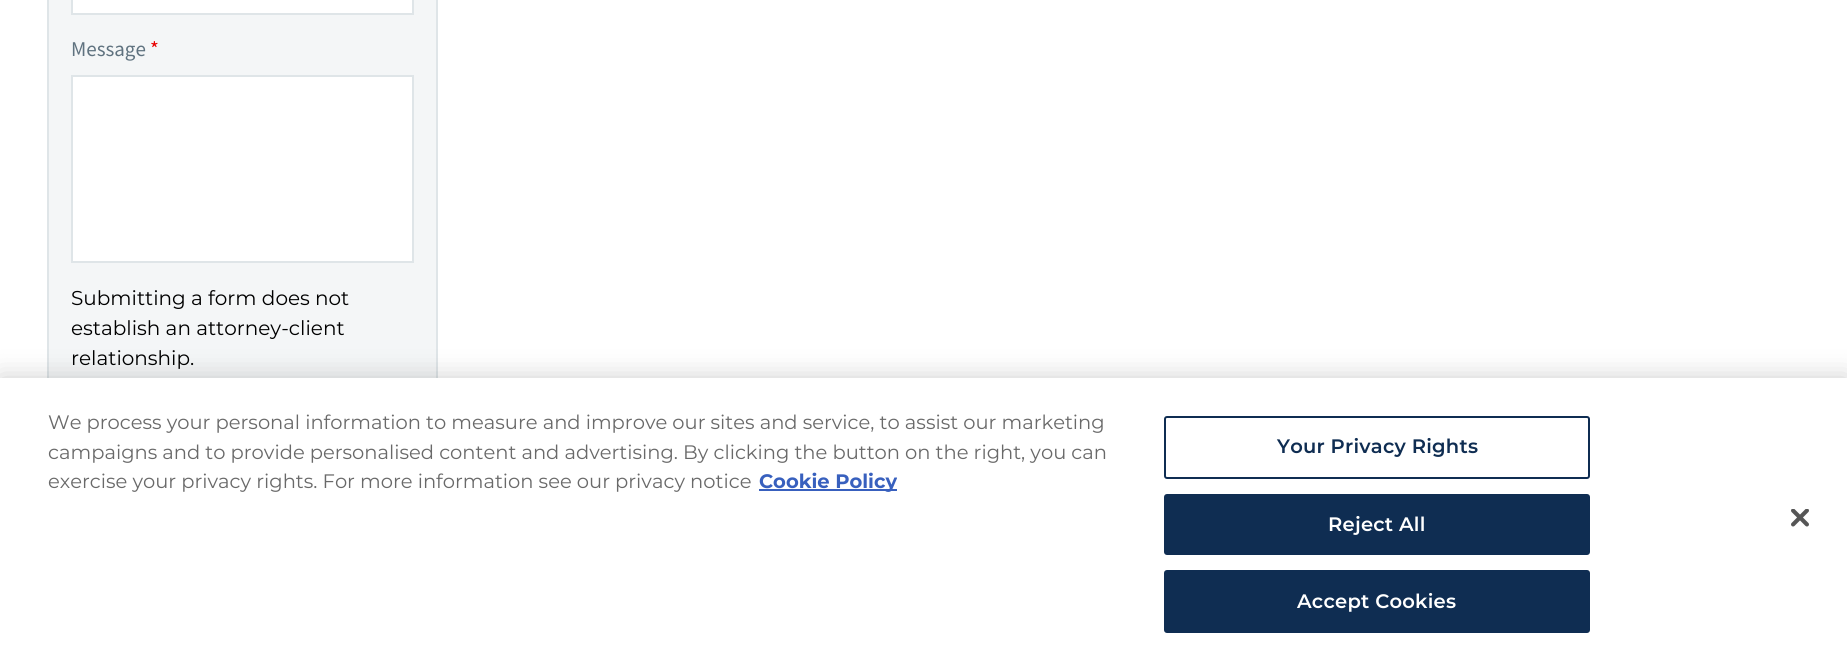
#include <cairo.h>
#include <math.h>
#include <stddef.h>


static void rgb(cairo_t *cr, int r, int g, int b)
{
	cairo_set_source_rgb(cr, r / 255.0, g / 255.0, b / 255.0);
}

static void face(cairo_t *cr, const char *family, double size, int italic, int bold)
{
	cairo_select_font_face(cr, family, italic ? CAIRO_FONT_SLANT_ITALIC : CAIRO_FONT_SLANT_NORMAL,
		bold ? CAIRO_FONT_WEIGHT_BOLD : CAIRO_FONT_WEIGHT_NORMAL);
	cairo_set_font_size(cr, size);
}

static void label(cairo_t *cr, double x, double y, const char *s)
{
	cairo_move_to(cr, x, y);
	cairo_show_text(cr, s);
}

static void tracked(cairo_t *cr, double x, double y, const char *s, double letter, double word)
{
	cairo_move_to(cr, x, y);
	while (*s) {
		char ch[5] = {0};
		int n = 0;
		do ch[n++] = *s++; while ((*s & 0xC0) == 0x80);
		cairo_show_text(cr, ch);
		cairo_rel_move_to(cr, letter + word * (*ch == ' '), 0);
	}
}

static void rect(cairo_t *cr, double x, double y, double w, double h)
{
	cairo_rectangle(cr, x, y, w, h);
	cairo_fill(cr);
}

static void rrect(cairo_t *cr, double x, double y, double w, double h, double r)
{
	cairo_new_sub_path(cr);
	cairo_arc(cr, x + w - r, y + h - r, r, 0, M_PI / 2);
	cairo_arc(cr, x + r, y + h - r, r, M_PI / 2, M_PI);
	cairo_arc(cr, x + r, y + r, r, M_PI, 1.5 * M_PI);
	cairo_arc(cr, x + w - r, y + r, r, 1.5 * M_PI, 2 * M_PI);
	cairo_close_path(cr);
}

static void soft_shadow(cairo_t *cr, double x, double y, double w, double h, double r, double blur, double alpha)
{
	cairo_push_group_with_content(cr, CAIRO_CONTENT_ALPHA);
	cairo_set_operator(cr, CAIRO_OPERATOR_SOURCE);
	for (int i = 15; i >= -15 && fmin(w, h) + blur * i / 3 > 0; i -= 2) {
		double e = blur * i / 6;
		cairo_set_source_rgba(cr, 0, 0, 0, alpha * erfc((i - 1) / 8.5) / 2);
		rrect(cr, x - e, y - e, w + 2 * e, h + 2 * e, fmax(0, fmin(r + e + blur * .6, fmin(w, h) / 2 + e)));
		cairo_fill(cr);
	}
	cairo_pattern_t *soft = cairo_pop_group(cr);
	cairo_mask(cr, soft);
	cairo_pattern_destroy(soft);
}

static void image(cairo_t *cr, const char *path, double x, double y, double w, double h)
{
	cairo_surface_t *image = cairo_image_surface_create_from_png(path);
	cairo_save(cr);
	cairo_set_source_surface(cr, image, x, y);
	cairo_rectangle(cr, x, y, w, h);
	cairo_fill(cr);
	cairo_restore(cr);
	cairo_surface_destroy(image);
}

static void draw(cairo_t *cr) {
	rgb(cr, 255, 255, 255);
	cairo_paint(cr);
	rgb(cr, 244, 246, 247);
	rect(cr, 49, 0, 387, 378);
	cairo_rectangle(cr, 48, -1, 389, 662);
	rgb(cr, 223, 229, 232);
	cairo_stroke(cr);
	rgb(cr, 255, 255, 255);
	cairo_rectangle(cr, 72, -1, 341, 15);
	cairo_fill_preserve(cr);
	rgb(cr, 223, 229, 232);
	cairo_stroke(cr);
	face(cr, "Source Sans Pro", 21, 0, 0);
	rgb(cr, 95, 114, 127);
	label(cr, 71, 56, "Message");
	rgb(cr, 232, 0, 0);
	label(cr, 150, 56, "*");
	rgb(cr, 255, 255, 255);
	cairo_rectangle(cr, 72, 76, 341, 186);
	cairo_fill_preserve(cr);
	rgb(cr, 223, 229, 232);
	cairo_stroke(cr);
	face(cr, "Montserrat", 20, 0, 0);
	rgb(cr, 0, 0, 0);
	label(cr, 71, 305, "Submitting a form does not");
	label(cr, 71, 335, "establish an attorney-client");
	label(cr, 71, 365, "relationship.");
	rgb(cr, 0, 0, 0);
	soft_shadow(cr, 0, 378, 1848, 285, 0, 13.5, 0.2);
	rgb(cr, 255, 255, 255);
	rect(cr, 0, 378, 1847, 285);
	face(cr, "Montserrat", 19.5, 0, 0);
	rgb(cr, 105, 105, 105);
	label(cr, 48, 429, "We process your personal information to measure and improve our sites and service, to assist our marketing");
	label(cr, 48, 459, "campaigns and to provide personalised content and advertising. By clicking the button on the right, you can");
	label(cr, 48, 488, "exercise your privacy rights. For more information see our privacy notice");
	rgb(cr, 56, 96, 190);
	rect(cr, 759, 489, 138, 2);
	face(cr, "Montserrat", 19.5, 0, 1);
	label(cr, 759, 488, "Cookie Policy");
	rrect(cr, 1165, 417, 424, 61, 2);
	rgb(cr, 15, 45, 82);
	cairo_stroke(cr);
	face(cr, "Montserrat SemiBold", 19.5, 0, 0);
	tracked(cr, 1277, 453, "Your Privacy Rights", 0.25, 0);
	rrect(cr, 1165, 495, 424, 59, 2);
	cairo_fill_preserve(cr);
	cairo_stroke(cr);
	rgb(cr, 255, 255, 255);
	tracked(cr, 1328, 531, "Reject All", 0.25, 0);
	rgb(cr, 15, 45, 82);
	rrect(cr, 1165, 571, 424, 61, 2);
	cairo_fill_preserve(cr);
	cairo_stroke(cr);
	rgb(cr, 255, 255, 255);
	tracked(cr, 1297, 608, "Accept Cookies", 0.25, 0);
	image(cr, "image0.png", 1791, 509, 18, 18);
}

int main(void) {
	cairo_surface_t *surface = cairo_image_surface_create(CAIRO_FORMAT_RGB24, 1847, 663);
	cairo_t *cr = cairo_create(surface);
	cairo_font_options_t *options = cairo_font_options_create();
	cairo_font_options_set_hint_metrics(options, CAIRO_HINT_METRICS_OFF);
	cairo_font_options_set_hint_style(options, CAIRO_HINT_STYLE_NONE);
	cairo_set_font_options(cr, options);
	cairo_set_miter_limit(cr, 4);
	draw(cr);
	cairo_surface_write_to_png(surface, "render.png");
	cairo_font_options_destroy(options);
	cairo_destroy(cr);
	cairo_surface_destroy(surface);
	return 0;
}
